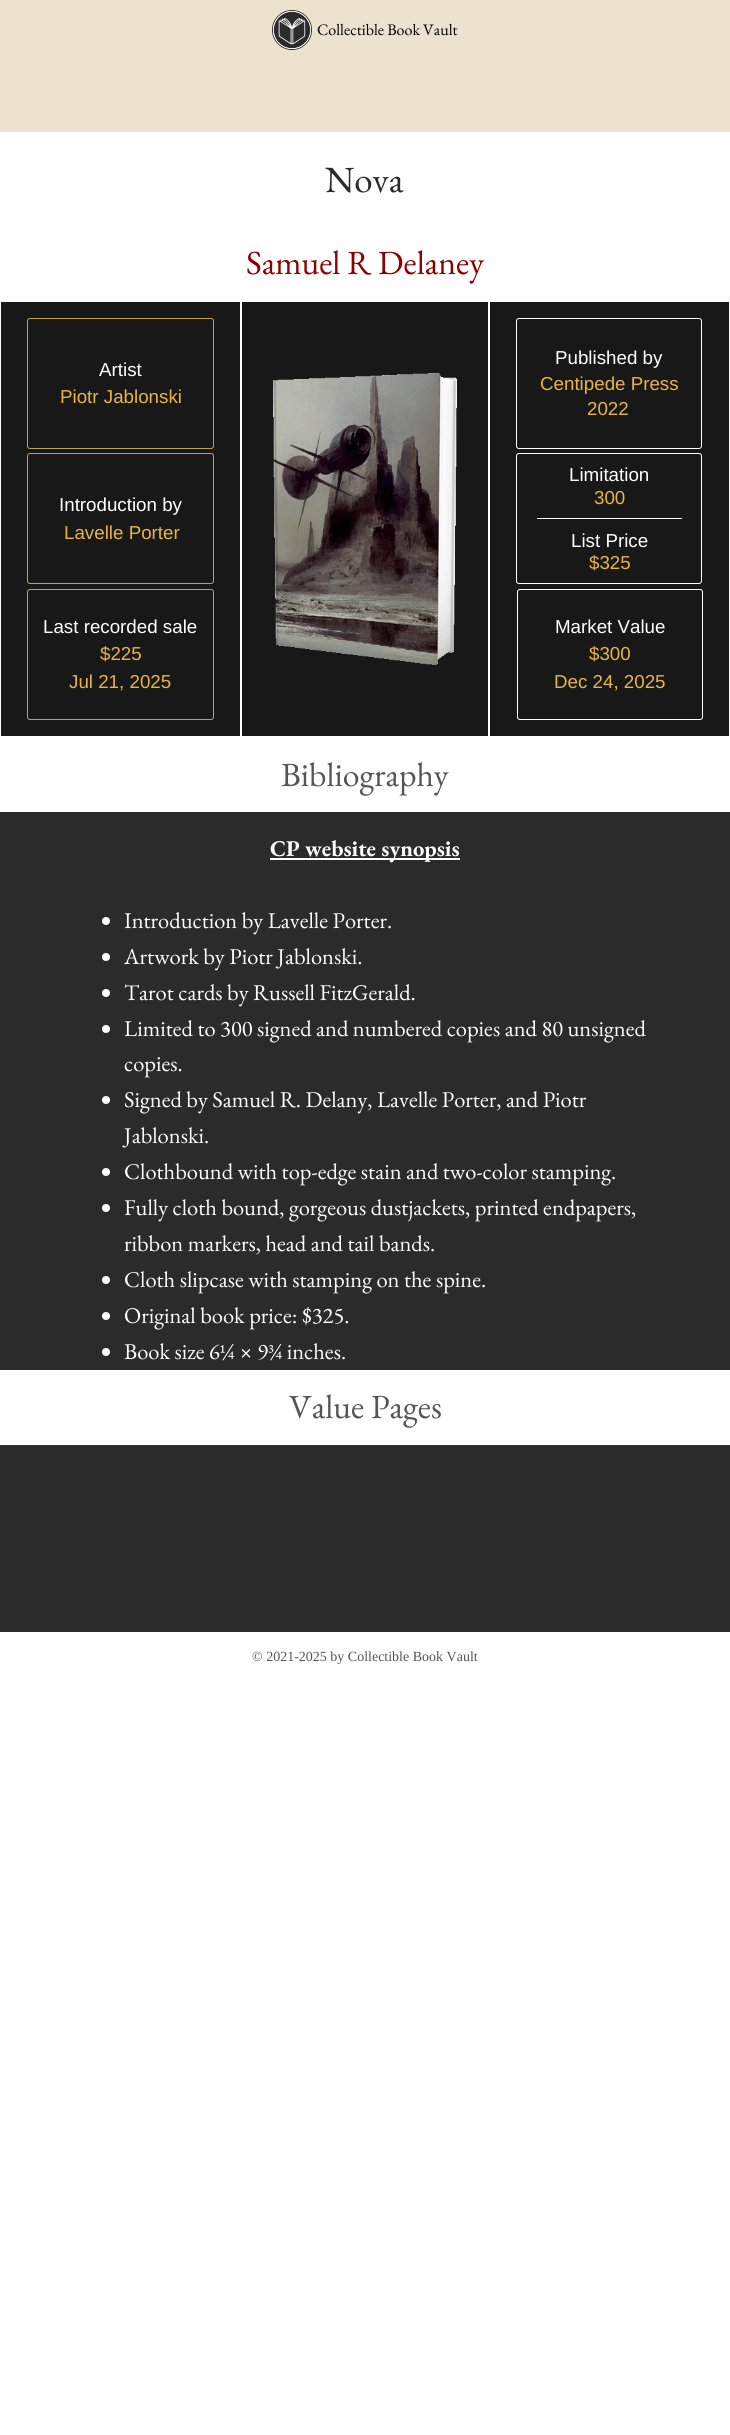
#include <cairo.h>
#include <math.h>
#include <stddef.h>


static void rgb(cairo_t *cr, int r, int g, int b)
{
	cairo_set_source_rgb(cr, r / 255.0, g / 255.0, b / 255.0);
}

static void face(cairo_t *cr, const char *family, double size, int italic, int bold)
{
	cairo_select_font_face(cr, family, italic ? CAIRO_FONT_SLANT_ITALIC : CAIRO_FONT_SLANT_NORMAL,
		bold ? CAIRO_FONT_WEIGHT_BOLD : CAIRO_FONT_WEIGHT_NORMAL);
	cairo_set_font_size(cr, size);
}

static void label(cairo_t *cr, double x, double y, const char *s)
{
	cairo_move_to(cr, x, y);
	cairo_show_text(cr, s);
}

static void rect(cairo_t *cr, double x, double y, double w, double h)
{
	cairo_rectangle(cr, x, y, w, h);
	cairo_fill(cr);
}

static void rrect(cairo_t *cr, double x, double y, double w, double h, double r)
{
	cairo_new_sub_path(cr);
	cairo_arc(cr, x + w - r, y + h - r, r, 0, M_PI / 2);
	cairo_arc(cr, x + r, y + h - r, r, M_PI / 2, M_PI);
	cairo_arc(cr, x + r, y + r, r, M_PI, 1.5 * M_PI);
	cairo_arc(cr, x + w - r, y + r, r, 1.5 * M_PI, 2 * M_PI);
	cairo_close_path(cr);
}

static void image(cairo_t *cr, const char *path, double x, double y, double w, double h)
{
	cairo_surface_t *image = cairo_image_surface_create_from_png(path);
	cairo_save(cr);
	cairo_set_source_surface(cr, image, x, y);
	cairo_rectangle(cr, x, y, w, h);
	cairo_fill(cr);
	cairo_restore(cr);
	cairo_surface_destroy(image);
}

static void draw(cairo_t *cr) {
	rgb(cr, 255, 255, 255);
	cairo_paint(cr);
	rgb(cr, 237, 226, 205);
	rect(cr, 0, 0, 730, 132);
	image(cr, "image0.png", 272, 10, 40, 40);
	face(cr, "EB Garamond", 16, 0, 0);
	rgb(cr, 0, 0, 0);
	label(cr, 317, 35, "Collectible Book Vault");
	face(cr, "EB Garamond", 37, 0, 0);
	rgb(cr, 43, 43, 43);
	label(cr, 325, 192, "Nova");
	face(cr, "EB Garamond", 33.75, 0, 0);
	rgb(cr, 139, 0, 0);
	label(cr, 246, 274, "Samuel R Delaney");
	rgb(cr, 25, 24, 24);
	rect(cr, 1, 302, 239, 434);
	rrect(cr, 27.5, 318.5, 186, 130, 2.5);
	rgb(cr, 193, 159, 88);
	cairo_set_line_width(cr, 1);
	cairo_stroke(cr);
	face(cr, "Liberation Sans", 18.75, 0, 0);
	rgb(cr, 255, 255, 255);
	label(cr, 99, 376, "Artist");
	rgb(cr, 232, 180, 72);
	label(cr, 60, 403, "Piotr Jablonski");
	rrect(cr, 27.5, 453.5, 186, 130, 2.5);
	rgb(cr, 193, 159, 88);
	cairo_stroke(cr);
	rgb(cr, 255, 255, 255);
	label(cr, 59, 511, "Introduction by");
	rgb(cr, 232, 180, 72);
	label(cr, 64, 539, "Lavelle Porter");
	rrect(cr, 27.5, 589.5, 186, 130, 2.5);
	rgb(cr, 193, 159, 88);
	cairo_stroke(cr);
	rgb(cr, 255, 255, 255);
	label(cr, 43, 633, "Last recorded sale");
	rgb(cr, 232, 180, 72);
	label(cr, 100, 660, "$225");
	label(cr, 69, 688, "Jul 21, 2025");
	rgb(cr, 25, 24, 24);
	rect(cr, 242, 302, 246, 434);
	image(cr, "image1.png", 273, 373, 184, 292);
	rect(cr, 490, 302, 239, 434);
	rrect(cr, 516.5, 318.5, 185, 130, 2.5);
	rgb(cr, 255, 255, 255);
	cairo_stroke(cr);
	label(cr, 555, 364, "Published by");
	rgb(cr, 232, 180, 72);
	label(cr, 540, 390, "Centipede Press");
	label(cr, 587, 415, "2022");
	rrect(cr, 516.5, 453.5, 185, 130, 2.5);
	rgb(cr, 255, 255, 255);
	cairo_stroke(cr);
	label(cr, 569, 481, "Limitation");
	rgb(cr, 232, 180, 72);
	label(cr, 594, 504, "300");
	rgb(cr, 255, 255, 255);
	rect(cr, 537, 518, 145, 1);
	label(cr, 571, 547, "List Price");
	rgb(cr, 232, 180, 72);
	label(cr, 589, 569, "$325");
	rrect(cr, 517.5, 589.5, 185, 130, 2.5);
	rgb(cr, 255, 255, 255);
	cairo_stroke(cr);
	label(cr, 555, 633, "Market Value");
	rgb(cr, 232, 180, 72);
	label(cr, 589, 660, "$300");
	label(cr, 554, 688, "Dec 24, 2025");
	face(cr, "EB Garamond", 33.75, 0, 0);
	rgb(cr, 85, 85, 85);
	label(cr, 281, 786, "Bibliography");
	rgb(cr, 43, 43, 43);
	rect(cr, 0, 812, 730, 558);
	rgb(cr, 255, 255, 255);
	rect(cr, 270, 858, 190, 2);
	face(cr, "EB Garamond", 22.5, 0, 1);
	label(cr, 270, 856, "CP website synopsis");
	cairo_new_path(cr);
	cairo_arc(cr, 106, 921, 4, 0, 2 * M_PI);
	cairo_fill(cr);
	face(cr, "EB Garamond", 22.5, 0, 0);
	label(cr, 124, 928, "Introduction by Lavelle Porter.");
	cairo_new_path(cr);
	cairo_arc(cr, 106, 957, 4, 0, 2 * M_PI);
	cairo_fill(cr);
	label(cr, 124, 964, "Artwork by Piotr Jablonski.");
	cairo_new_path(cr);
	cairo_arc(cr, 106, 993, 4, 0, 2 * M_PI);
	cairo_fill(cr);
	label(cr, 124, 1000, "Tarot cards by Russell FitzGerald.");
	cairo_new_path(cr);
	cairo_arc(cr, 106, 1029, 4, 0, 2 * M_PI);
	cairo_fill(cr);
	label(cr, 124, 1036, "Limited to 300 signed and numbered copies and 80 unsigned");
	label(cr, 124, 1071, "copies.");
	cairo_new_path(cr);
	cairo_arc(cr, 106, 1100, 4, 0, 2 * M_PI);
	cairo_fill(cr);
	label(cr, 124, 1107, "Signed by Samuel R. Delany, Lavelle Porter, and Piotr");
	label(cr, 124, 1143, "Jablonski.");
	cairo_new_path(cr);
	cairo_arc(cr, 106, 1172, 4, 0, 2 * M_PI);
	cairo_fill(cr);
	label(cr, 124, 1179, "Clothbound with top-edge stain and two-color stamping.");
	cairo_new_path(cr);
	cairo_arc(cr, 106, 1208, 4, 0, 2 * M_PI);
	cairo_fill(cr);
	label(cr, 124, 1215, "Fully cloth bound, gorgeous dustjackets, printed endpapers,");
	label(cr, 124, 1251, "ribbon markers, head and tail bands.");
	cairo_new_path(cr);
	cairo_arc(cr, 106, 1280, 4, 0, 2 * M_PI);
	cairo_fill(cr);
	label(cr, 124, 1287, "Cloth slipcase with stamping on the spine.");
	cairo_new_path(cr);
	cairo_arc(cr, 106, 1316, 4, 0, 2 * M_PI);
	cairo_fill(cr);
	label(cr, 124, 1323, "Original book price: $325.");
	cairo_new_path(cr);
	cairo_arc(cr, 106, 1352, 4, 0, 2 * M_PI);
	cairo_fill(cr);
	label(cr, 124, 1359, "Book size 6¼ × 9¾ inches.");
	face(cr, "EB Garamond", 33.75, 0, 0);
	rgb(cr, 85, 85, 85);
	label(cr, 289, 1418, "Value Pages");
	rgb(cr, 43, 43, 43);
	rect(cr, 0, 1445, 730, 187);
	face(cr, "Liberation Serif", 14, 0, 0);
	rgb(cr, 85, 85, 85);
	label(cr, 252, 1661, "© 2021-2025 by Collectible Book Vault");
}

int main(void) {
	cairo_surface_t *surface = cairo_image_surface_create(CAIRO_FORMAT_RGB24, 730, 2435);
	cairo_t *cr = cairo_create(surface);
	cairo_font_options_t *options = cairo_font_options_create();
	cairo_font_options_set_hint_metrics(options, CAIRO_HINT_METRICS_OFF);
	cairo_font_options_set_hint_style(options, CAIRO_HINT_STYLE_NONE);
	cairo_set_font_options(cr, options);
	cairo_set_miter_limit(cr, 4);
	draw(cr);
	cairo_surface_write_to_png(surface, "render.png");
	cairo_font_options_destroy(options);
	cairo_destroy(cr);
	cairo_surface_destroy(surface);
	return 0;
}
